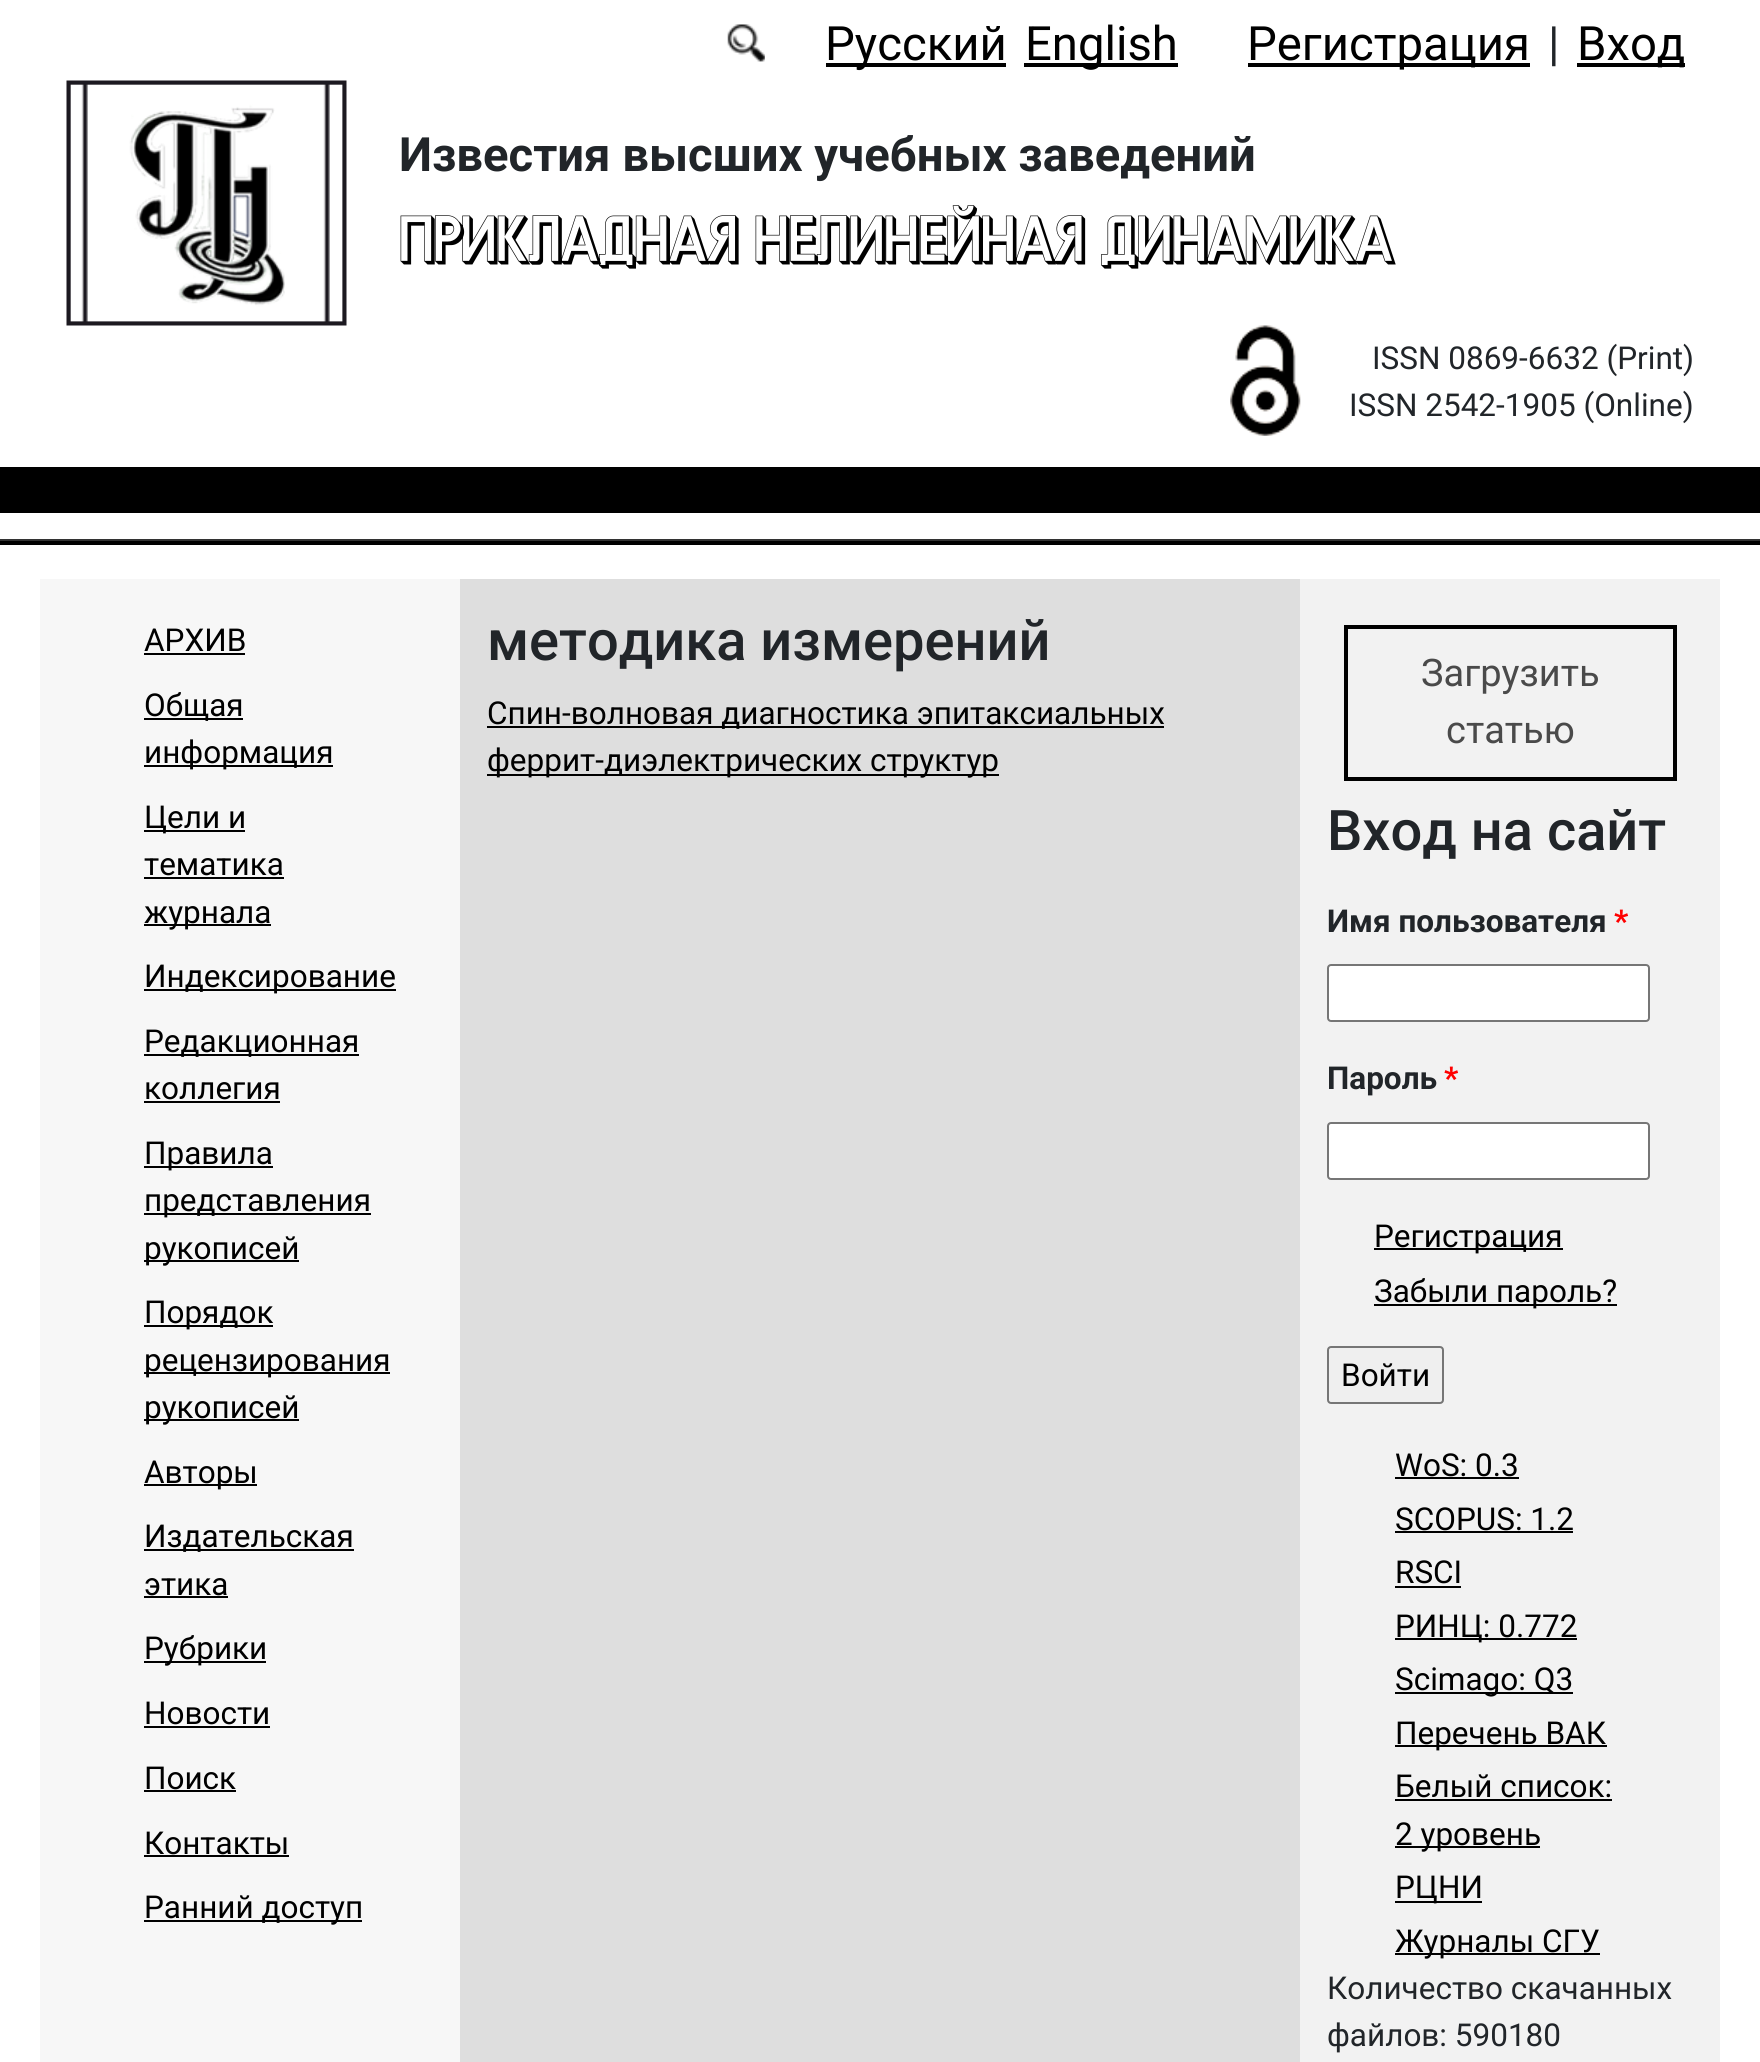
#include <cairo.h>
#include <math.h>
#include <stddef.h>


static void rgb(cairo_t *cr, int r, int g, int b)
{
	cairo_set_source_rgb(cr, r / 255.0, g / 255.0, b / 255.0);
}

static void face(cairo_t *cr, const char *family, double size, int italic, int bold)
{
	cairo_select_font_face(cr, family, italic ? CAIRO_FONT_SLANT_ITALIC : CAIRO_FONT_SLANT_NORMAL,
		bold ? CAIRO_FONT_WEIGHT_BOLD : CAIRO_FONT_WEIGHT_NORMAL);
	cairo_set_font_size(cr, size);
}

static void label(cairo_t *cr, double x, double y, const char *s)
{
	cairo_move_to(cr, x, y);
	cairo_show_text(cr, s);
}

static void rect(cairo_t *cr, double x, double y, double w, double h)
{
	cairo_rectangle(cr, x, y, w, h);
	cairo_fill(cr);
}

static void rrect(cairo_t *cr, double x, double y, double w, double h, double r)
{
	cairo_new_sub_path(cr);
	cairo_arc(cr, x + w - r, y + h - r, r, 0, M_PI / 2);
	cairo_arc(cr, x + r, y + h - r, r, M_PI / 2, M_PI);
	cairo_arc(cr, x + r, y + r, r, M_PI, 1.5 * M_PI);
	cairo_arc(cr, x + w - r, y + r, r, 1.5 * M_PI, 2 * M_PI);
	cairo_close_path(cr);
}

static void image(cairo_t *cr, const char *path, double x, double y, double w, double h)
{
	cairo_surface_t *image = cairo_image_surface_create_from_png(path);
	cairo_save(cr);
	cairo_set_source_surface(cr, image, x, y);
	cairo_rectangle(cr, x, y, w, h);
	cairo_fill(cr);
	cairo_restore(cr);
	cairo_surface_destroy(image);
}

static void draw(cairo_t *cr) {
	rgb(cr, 255, 255, 255);
	cairo_paint(cr);
	image(cr, "image0.png", 727, 24, 38, 38);
	rgb(cr, 0, 0, 0);
	rect(cr, 826, 63, 180, 4);
	face(cr, "Roboto", 47.25, 0, 0);
	label(cr, 825, 60, "Русский");
	rect(cr, 1024, 63, 154, 4);
	label(cr, 1025, 60, "English");
	rect(cr, 1248, 63, 282, 4);
	label(cr, 1247, 60, "Регистрация");
	rgb(cr, 33, 37, 41);
	label(cr, 1548, 60, "|");
	rgb(cr, 0, 0, 0);
	rect(cr, 1577, 63, 108, 4);
	label(cr, 1577, 60, "Вход");
	image(cr, "image1.png", 66, 80, 281, 246);
	face(cr, "Roboto", 47.25, 0, 1);
	rgb(cr, 33, 37, 41);
	label(cr, 399, 171, "Известия высших учебных заведений");
	face(cr, "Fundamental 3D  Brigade", 63, 0, 0);
	rgb(cr, 0, 0, 0);
	label(cr, 399, 261, "ПРИКЛАДНАЯ НЕЛИНЕЙНАЯ ДИНАМИКА");
	image(cr, "image2.png", 1230, 325, 71, 111);
	face(cr, "Roboto", 31.5, 0, 0);
	rgb(cr, 33, 37, 41);
	label(cr, 1372, 369, "ISSN 0869-6632 (Print)");
	label(cr, 1349, 416, "ISSN 2542-1905 (Online)");
	rgb(cr, 0, 0, 0);
	rect(cr, 0, 467, 1760, 46);
	rgb(cr, 51, 51, 51);
	rect(cr, 0, 539, 1760, 2);
	rgb(cr, 0, 0, 0);
	rect(cr, 0, 541, 1760, 4);
	rgb(cr, 247, 247, 247);
	rect(cr, 40, 579, 420, 1483);
	rgb(cr, 0, 0, 0);
	label(cr, 144, 651, "АРХИВ");
	rect(cr, 144, 653, 101, 2);
	rect(cr, 144, 718, 99, 2);
	label(cr, 144, 716, "Общая");
	rect(cr, 144, 765, 189, 2);
	label(cr, 144, 763, "информация");
	rect(cr, 144, 830, 101, 2);
	label(cr, 144, 828, "Цели и");
	label(cr, 144, 875, "тематика");
	rect(cr, 144, 877, 140, 2);
	rect(cr, 144, 924, 127, 2);
	label(cr, 144, 923, "журнала");
	rect(cr, 144, 989, 252, 2);
	label(cr, 144, 987, "Индексирование");
	rect(cr, 144, 1054, 215, 2);
	label(cr, 144, 1052, "Редакционная");
	label(cr, 144, 1099, "коллегия");
	rect(cr, 144, 1101, 136, 2);
	rect(cr, 144, 1166, 129, 2);
	label(cr, 144, 1164, "Правила");
	rect(cr, 144, 1213, 227, 2);
	label(cr, 144, 1211, "представления");
	rect(cr, 144, 1260, 155, 2);
	label(cr, 144, 1259, "рукописей");
	rect(cr, 144, 1325, 129, 2);
	label(cr, 144, 1323, "Порядок");
	rect(cr, 144, 1372, 246, 2);
	label(cr, 144, 1371, "рецензирования");
	rect(cr, 144, 1419, 155, 2);
	label(cr, 144, 1418, "рукописей");
	rect(cr, 144, 1484, 113, 2);
	label(cr, 144, 1483, "Авторы");
	rect(cr, 144, 1549, 210, 2);
	label(cr, 144, 1547, "Издательская");
	label(cr, 144, 1595, "этика");
	rect(cr, 144, 1596, 84, 2);
	rect(cr, 144, 1661, 122, 2);
	label(cr, 144, 1659, "Рубрики");
	label(cr, 144, 1724, "Новости");
	rect(cr, 144, 1726, 126, 2);
	label(cr, 144, 1789, "Поиск");
	rect(cr, 144, 1790, 92, 2);
	label(cr, 144, 1854, "Контакты");
	rect(cr, 144, 1855, 145, 2);
	rect(cr, 144, 1920, 218, 2);
	label(cr, 144, 1918, "Ранний доступ");
	rgb(cr, 222, 222, 222);
	rect(cr, 460, 579, 840, 1483);
	face(cr, "Roboto Medium", 56, 0, 0);
	rgb(cr, 33, 37, 41);
	label(cr, 487, 660, "методика измерений");
	rgb(cr, 0, 0, 0);
	rect(cr, 487, 726, 677, 2);
	face(cr, "Roboto", 31.5, 0, 0);
	label(cr, 487, 724, "Спин-волновая диагностика эпитаксиальных");
	rect(cr, 487, 774, 512, 2);
	label(cr, 487, 771, "феррит-диэлектрических структур");
	rgb(cr, 242, 242, 242);
	rect(cr, 1300, 579, 420, 1483);
	cairo_rectangle(cr, 1346, 627, 329, 152);
	rgb(cr, 0, 0, 0);
	cairo_set_line_width(cr, 4);
	cairo_stroke(cr);
	face(cr, "Roboto", 38, 0, 0);
	rgb(cr, 74, 74, 74);
	label(cr, 1421, 686, "Загрузить");
	label(cr, 1446, 743, "статью");
	face(cr, "Roboto Medium", 56, 0, 0);
	rgb(cr, 33, 37, 41);
	label(cr, 1327, 850, "Вход на сайт");
	face(cr, "Roboto", 31.5, 0, 1);
	label(cr, 1327, 932, "Имя пользователя");
	rgb(cr, 255, 0, 0);
	label(cr, 1614, 932, "*");
	rgb(cr, 255, 255, 255);
	rrect(cr, 1328, 965, 321, 56, 3);
	cairo_fill_preserve(cr);
	rgb(cr, 118, 118, 118);
	cairo_set_line_width(cr, 2);
	cairo_stroke(cr);
	rgb(cr, 33, 37, 41);
	label(cr, 1327, 1089, "Пароль");
	rgb(cr, 255, 0, 0);
	label(cr, 1444, 1089, "*");
	rgb(cr, 255, 255, 255);
	rrect(cr, 1328, 1123, 321, 56, 3);
	cairo_fill_preserve(cr);
	rgb(cr, 118, 118, 118);
	cairo_stroke(cr);
	rgb(cr, 0, 0, 0);
	rect(cr, 1374, 1248, 189, 2);
	face(cr, "Roboto", 31.5, 0, 0);
	label(cr, 1374, 1247, "Регистрация");
	rect(cr, 1374, 1304, 243, 2);
	label(cr, 1374, 1302, "Забыли пароль?");
	rgb(cr, 239, 239, 239);
	rrect(cr, 1328, 1347, 115, 56, 3);
	cairo_fill_preserve(cr);
	rgb(cr, 118, 118, 118);
	cairo_stroke(cr);
	rgb(cr, 0, 0, 0);
	label(cr, 1341, 1386, "Войти");
	label(cr, 1395, 1476, "WoS: 0.3");
	rect(cr, 1395, 1477, 124, 2);
	label(cr, 1395, 1530, "SCOPUS: 1.2");
	rect(cr, 1395, 1531, 178, 2);
	label(cr, 1395, 1583, "RSCI");
	rect(cr, 1395, 1586, 66, 2);
	rect(cr, 1395, 1638, 182, 2);
	label(cr, 1395, 1637, "РИНЦ: 0.772");
	rect(cr, 1395, 1692, 178, 2);
	label(cr, 1395, 1690, "Scimago: Q3");
	rect(cr, 1395, 1745, 212, 2);
	label(cr, 1395, 1744, "Перечень ВАК");
	label(cr, 1395, 1797, "Белый список:");
	rect(cr, 1395, 1799, 217, 2);
	rect(cr, 1395, 1846, 145, 2);
	label(cr, 1395, 1845, "2 уровень");
	rect(cr, 1395, 1901, 87, 2);
	label(cr, 1395, 1898, "РЦНИ");
	rect(cr, 1395, 1953, 205, 2);
	label(cr, 1395, 1952, "Журналы СГУ");
	rgb(cr, 33, 37, 41);
	label(cr, 1327, 1999, "Количество скачанных");
	label(cr, 1327, 2046, "файлов: 590180");
}

int main(void) {
	cairo_surface_t *surface = cairo_image_surface_create(CAIRO_FORMAT_RGB24, 1760, 2062);
	cairo_t *cr = cairo_create(surface);
	cairo_font_options_t *options = cairo_font_options_create();
	cairo_font_options_set_hint_metrics(options, CAIRO_HINT_METRICS_OFF);
	cairo_font_options_set_hint_style(options, CAIRO_HINT_STYLE_NONE);
	cairo_set_font_options(cr, options);
	cairo_set_miter_limit(cr, 4);
	draw(cr);
	cairo_surface_write_to_png(surface, "render.png");
	cairo_font_options_destroy(options);
	cairo_destroy(cr);
	cairo_surface_destroy(surface);
	return 0;
}
